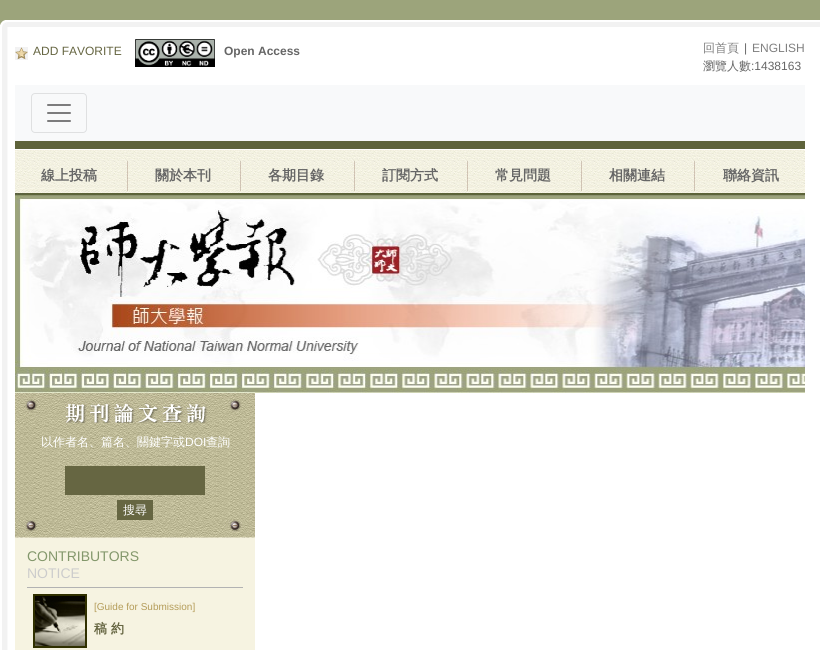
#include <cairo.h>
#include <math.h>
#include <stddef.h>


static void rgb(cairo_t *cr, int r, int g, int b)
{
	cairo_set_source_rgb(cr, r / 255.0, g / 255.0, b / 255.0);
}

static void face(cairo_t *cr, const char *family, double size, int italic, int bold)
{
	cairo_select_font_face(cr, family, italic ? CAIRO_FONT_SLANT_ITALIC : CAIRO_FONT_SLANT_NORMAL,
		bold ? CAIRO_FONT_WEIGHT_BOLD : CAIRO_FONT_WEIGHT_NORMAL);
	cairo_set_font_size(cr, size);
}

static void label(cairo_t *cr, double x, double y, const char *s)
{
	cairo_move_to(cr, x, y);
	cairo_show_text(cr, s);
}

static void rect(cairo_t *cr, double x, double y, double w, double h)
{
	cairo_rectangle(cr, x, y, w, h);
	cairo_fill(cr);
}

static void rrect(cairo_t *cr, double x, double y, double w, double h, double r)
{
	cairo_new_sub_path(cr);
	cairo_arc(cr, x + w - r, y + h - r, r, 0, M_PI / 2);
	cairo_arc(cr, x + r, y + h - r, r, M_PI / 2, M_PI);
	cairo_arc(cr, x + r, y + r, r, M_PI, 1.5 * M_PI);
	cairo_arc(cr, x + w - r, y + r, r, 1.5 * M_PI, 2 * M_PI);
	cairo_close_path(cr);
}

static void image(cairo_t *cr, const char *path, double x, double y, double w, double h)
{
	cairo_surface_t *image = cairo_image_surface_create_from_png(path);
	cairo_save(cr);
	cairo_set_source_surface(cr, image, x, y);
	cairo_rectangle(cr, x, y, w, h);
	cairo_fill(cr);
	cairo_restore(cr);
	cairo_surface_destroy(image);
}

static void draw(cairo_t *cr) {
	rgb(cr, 156, 164, 123);
	cairo_paint(cr);
	image(cr, "image0.png", 0, 20, 820, 7);
	image(cr, "image1.png", 0, 27, 820, 623);
	image(cr, "image2.png", 15, 47, 13, 13);
	face(cr, "Liberation Sans", 12, 0, 0);
	rgb(cr, 102, 102, 66);
	label(cr, 33, 55, "ADD FAVORITE");
	image(cr, "image3.png", 135, 39, 80, 28);
	face(cr, "Liberation Sans", 12, 0, 1);
	rgb(cr, 102, 102, 102);
	label(cr, 224, 55, "Open Access");
	face(cr, "WenQuanYi Zen Hei Medium", 12, 0, 0);
	rgb(cr, 128, 128, 128);
	label(cr, 703, 52, "回首頁");
	face(cr, "Liberation Sans", 12, 0, 0);
	rgb(cr, 102, 102, 102);
	label(cr, 744, 52, "|");
	rgb(cr, 128, 128, 128);
	label(cr, 752, 52, "ENGLISH");
	face(cr, "WenQuanYi Zen Hei Medium", 12, 0, 0);
	rgb(cr, 102, 102, 102);
	label(cr, 703, 70, "瀏覽人數");
	face(cr, "Liberation Sans", 12, 0, 0);
	label(cr, 751, 70, ":1438163");
	rgb(cr, 248, 249, 250);
	rect(cr, 15, 85, 790, 56);
	rrect(cr, 31.5, 93.5, 55, 39, 3.5);
	rgb(cr, 223, 224, 225);
	cairo_set_line_width(cr, 1);
	cairo_stroke(cr);
	image(cr, "image4.png", 47, 104, 24, 18);
	image(cr, "image5.png", 15, 150, 790, 43);
	rgb(cr, 94, 99, 59);
	rect(cr, 15, 141, 790, 8);
	face(cr, "WenQuanYi Zen Hei", 14, 0, 1);
	rgb(cr, 102, 102, 102);
	label(cr, 41, 180, "線上投稿");
	image(cr, "image6.png", 124, 150, 5, 43);
	label(cr, 155, 180, "關於本刊");
	image(cr, "image6.png", 237, 150, 5, 43);
	label(cr, 268, 180, "各期目錄");
	image(cr, "image6.png", 351, 150, 5, 43);
	label(cr, 382, 180, "訂閱方式");
	image(cr, "image6.png", 464, 150, 5, 43);
	label(cr, 495, 180, "常見問題");
	image(cr, "image6.png", 578, 150, 5, 43);
	label(cr, 609, 180, "相關連結");
	image(cr, "image6.png", 691, 150, 5, 43);
	label(cr, 723, 180, "聯絡資訊");
	image(cr, "image7.png", 15, 193, 790, 200);
	image(cr, "image8.png", 15, 393, 240, 30);
	image(cr, "image9.png", 15, 423, 240, 97);
	face(cr, "WenQuanYi Zen Hei Medium", 12, 0, 0);
	rgb(cr, 255, 255, 255);
	label(cr, 41, 446, "以作者名、篇名、關鍵字或");
	face(cr, "Liberation Sans", 12, 0, 0);
	label(cr, 185, 446, "DOI");
	face(cr, "WenQuanYi Zen Hei Medium", 12, 0, 0);
	label(cr, 206, 446, "查詢");
	rgb(cr, 102, 102, 66);
	rect(cr, 65, 466, 140, 29);
	rect(cr, 117, 500, 36, 20);
	rgb(cr, 255, 255, 255);
	label(cr, 123, 514, "搜尋");
	image(cr, "image10.png", 15, 520, 240, 18);
	rgb(cr, 246, 243, 225);
	rect(cr, 15, 538, 240, 112);
	rgb(cr, 178, 178, 178);
	rect(cr, 27, 587, 216, 1);
	face(cr, "Liberation Sans", 14, 0, 0);
	rgb(cr, 131, 151, 107);
	label(cr, 27, 561, "CONTRIBUTORS");
	rgb(cr, 204, 204, 204);
	label(cr, 27, 578, "NOTICE");
	cairo_rectangle(cr, 34, 595, 52, 52);
	rgb(cr, 48, 48, 0);
	cairo_set_line_width(cr, 2);
	cairo_stroke(cr);
	image(cr, "image11.png", 35, 596, 50, 50);
	face(cr, "Liberation Sans", 10, 0, 0);
	rgb(cr, 180, 156, 89);
	label(cr, 94, 610, "[Guide for Submission]");
	face(cr, "WenQuanYi Zen Hei", 13, 0, 1);
	rgb(cr, 102, 102, 66);
	label(cr, 94, 633, "稿 約");
}

int main(void) {
	cairo_surface_t *surface = cairo_image_surface_create(CAIRO_FORMAT_RGB24, 820, 650);
	cairo_t *cr = cairo_create(surface);
	cairo_font_options_t *options = cairo_font_options_create();
	cairo_font_options_set_hint_metrics(options, CAIRO_HINT_METRICS_OFF);
	cairo_font_options_set_hint_style(options, CAIRO_HINT_STYLE_NONE);
	cairo_set_font_options(cr, options);
	cairo_set_miter_limit(cr, 4);
	draw(cr);
	cairo_surface_write_to_png(surface, "render.png");
	cairo_font_options_destroy(options);
	cairo_destroy(cr);
	cairo_surface_destroy(surface);
	return 0;
}
